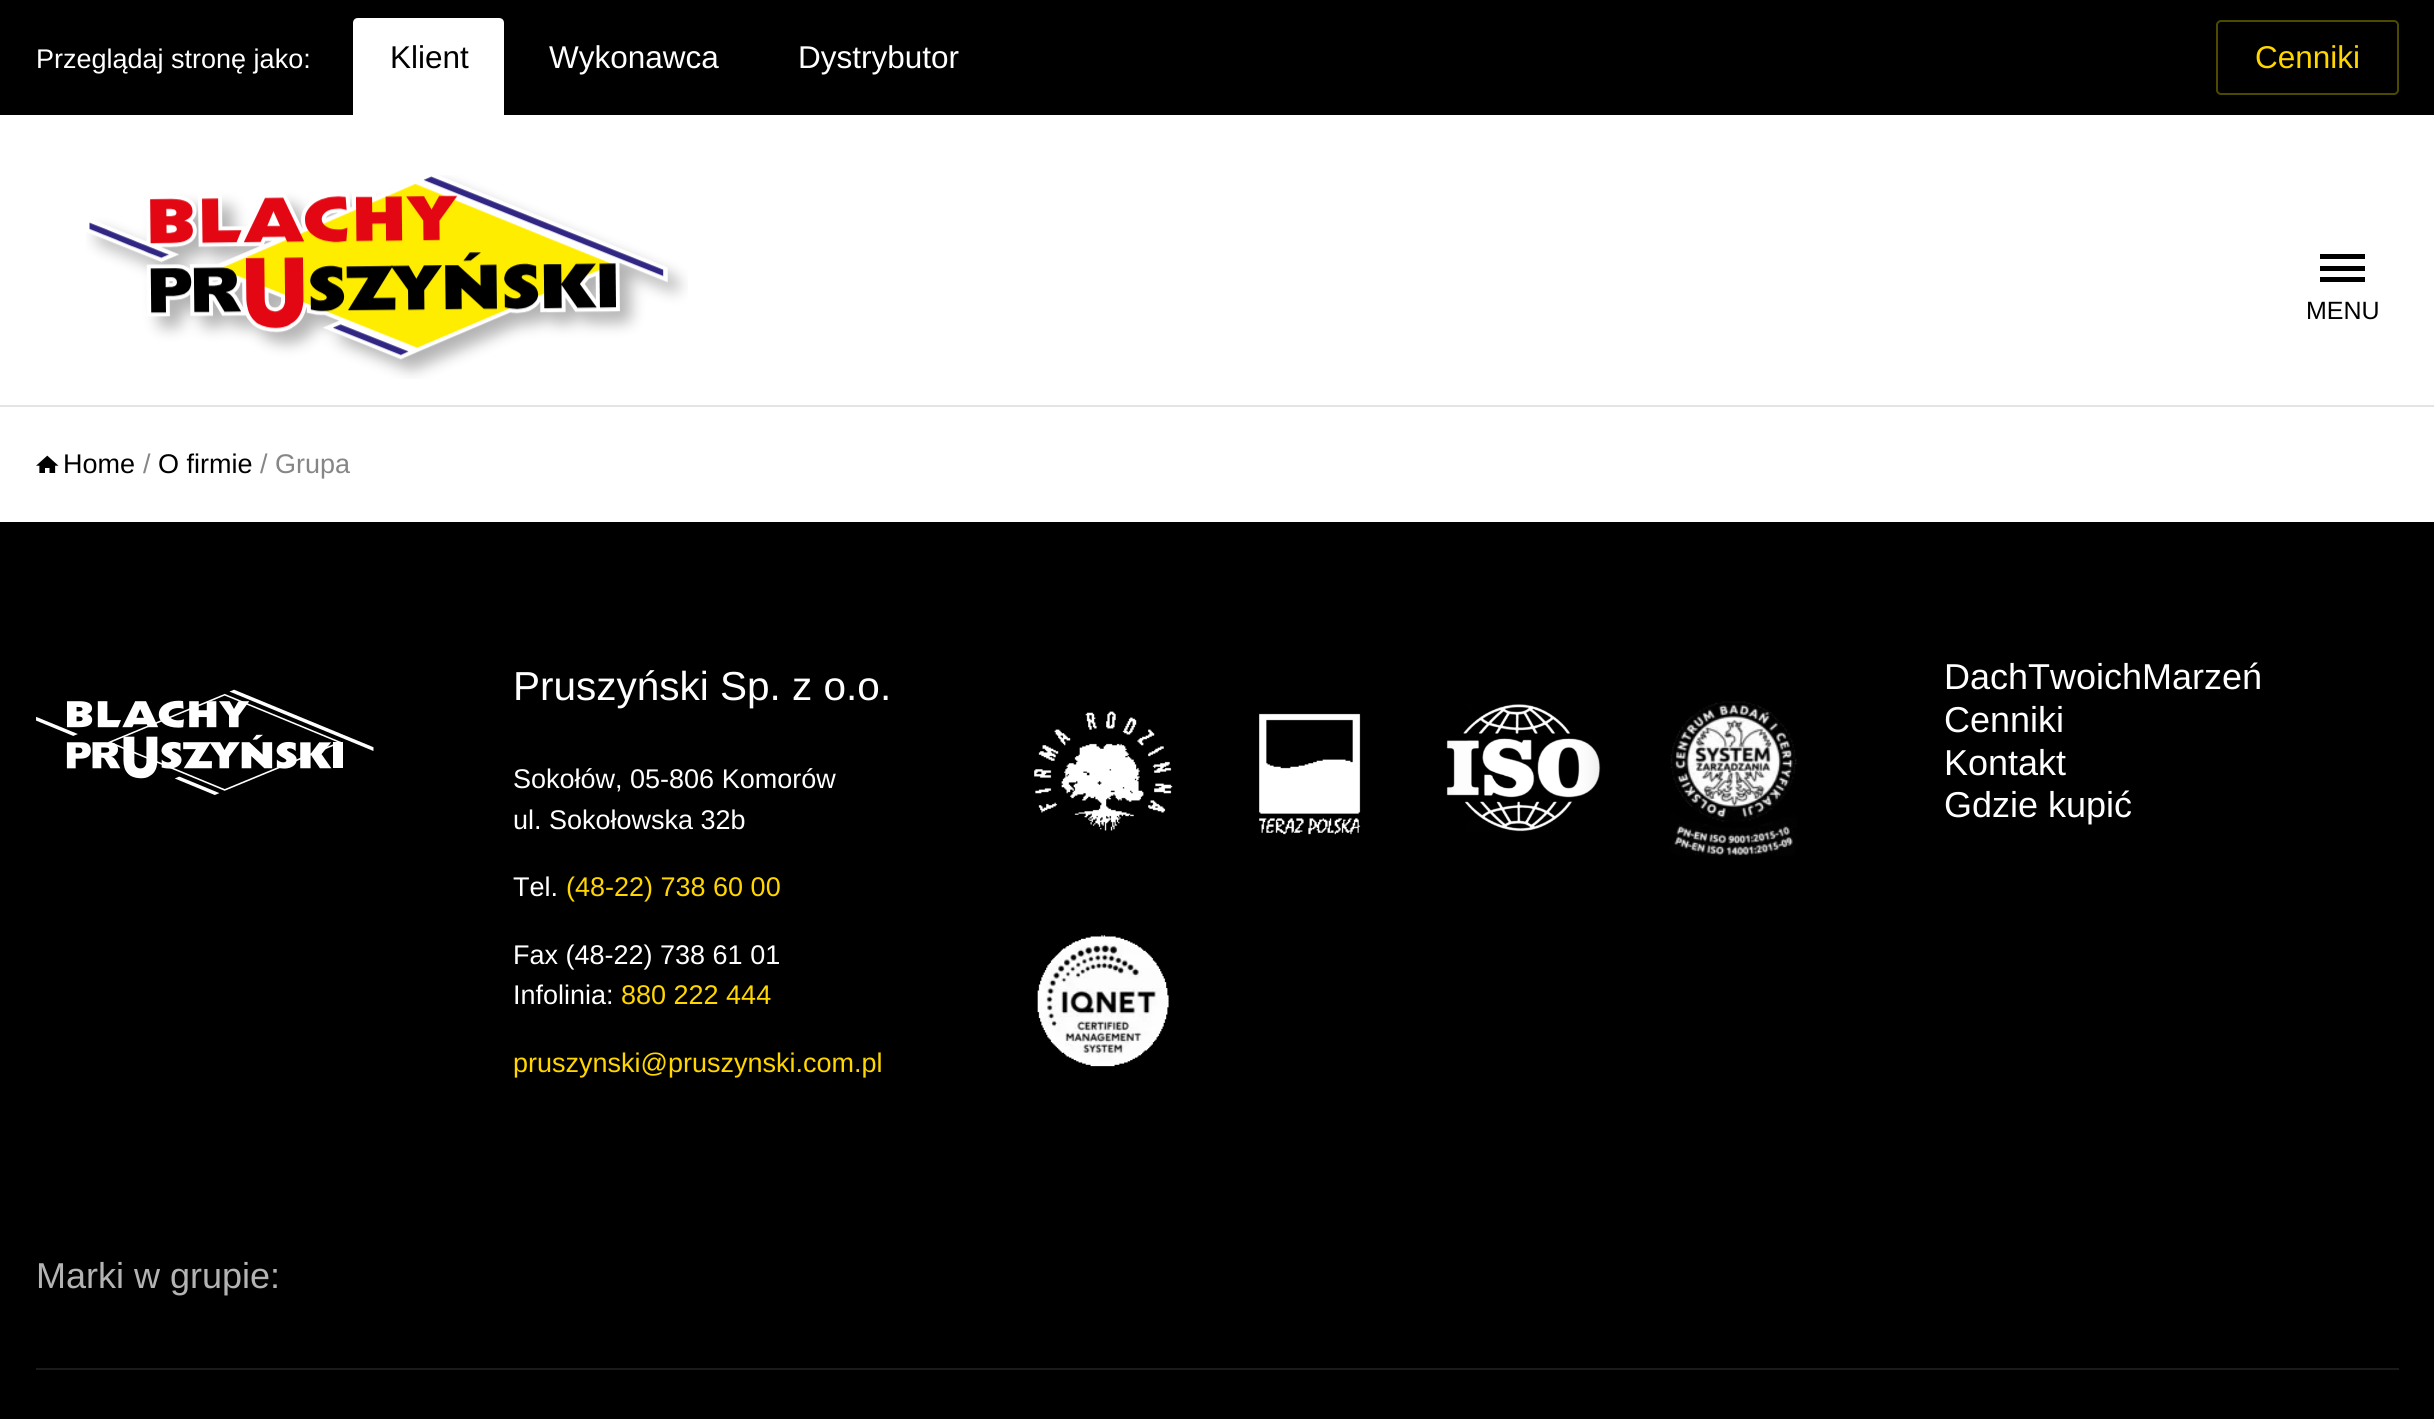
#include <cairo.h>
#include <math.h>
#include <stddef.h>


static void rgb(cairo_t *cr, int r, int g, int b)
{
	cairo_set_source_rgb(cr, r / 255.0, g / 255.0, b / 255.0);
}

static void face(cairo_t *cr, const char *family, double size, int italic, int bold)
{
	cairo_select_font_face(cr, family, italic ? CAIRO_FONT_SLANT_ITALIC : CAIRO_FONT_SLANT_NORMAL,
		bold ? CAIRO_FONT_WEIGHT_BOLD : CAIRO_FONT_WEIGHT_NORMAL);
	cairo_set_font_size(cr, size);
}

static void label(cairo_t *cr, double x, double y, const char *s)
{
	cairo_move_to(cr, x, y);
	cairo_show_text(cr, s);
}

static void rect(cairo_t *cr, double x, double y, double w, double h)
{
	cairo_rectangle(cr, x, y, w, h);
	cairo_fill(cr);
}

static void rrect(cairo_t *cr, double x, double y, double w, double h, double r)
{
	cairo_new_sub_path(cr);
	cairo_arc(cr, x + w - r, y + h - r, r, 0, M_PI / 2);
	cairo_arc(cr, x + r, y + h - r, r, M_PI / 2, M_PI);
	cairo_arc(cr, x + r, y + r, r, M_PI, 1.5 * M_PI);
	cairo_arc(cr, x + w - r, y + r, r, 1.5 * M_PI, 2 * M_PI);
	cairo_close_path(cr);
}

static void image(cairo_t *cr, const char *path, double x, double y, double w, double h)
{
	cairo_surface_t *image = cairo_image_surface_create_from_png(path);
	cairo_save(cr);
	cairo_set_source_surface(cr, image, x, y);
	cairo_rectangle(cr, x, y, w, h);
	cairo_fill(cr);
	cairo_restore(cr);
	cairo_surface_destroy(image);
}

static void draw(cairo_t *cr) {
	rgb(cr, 255, 255, 255);
	cairo_paint(cr);
	rgb(cr, 0, 0, 0);
	rect(cr, 0, 0, 2434, 115);
	face(cr, "Liberation Sans", 27, 0, 0);
	rgb(cr, 255, 255, 255);
	label(cr, 36, 68, "Przeglądaj stronę jako:");
	cairo_new_path(cr);
	cairo_move_to(cr, 358, 18);
	cairo_line_to(cr, 499, 18);
	cairo_curve_to(cr, 502, 18, 504, 20, 504, 23);
	cairo_line_to(cr, 504, 115);
	cairo_line_to(cr, 353, 115);
	cairo_line_to(cr, 353, 23);
	cairo_curve_to(cr, 353, 20, 355, 18, 358, 18);
	cairo_close_path(cr);
	cairo_fill(cr);
	face(cr, "Liberation Sans", 31.5, 0, 0);
	rgb(cr, 0, 0, 0);
	label(cr, 390, 68, "Klient");
	rgb(cr, 255, 255, 255);
	label(cr, 549, 68, "Wykonawca");
	label(cr, 798, 68, "Dystrybutor");
	rrect(cr, 2217, 21, 181, 73, 4);
	rgb(cr, 77, 74, 0);
	cairo_stroke(cr);
	rgb(cr, 255, 214, 0);
	label(cr, 2255, 68, "Cenniki");
	image(cr, "image0.png", 86, 175, 602, 204);
	rgb(cr, 0, 0, 0);
	rect(cr, 2320, 254, 45, 5);
	rect(cr, 2320, 266, 45, 5);
	rect(cr, 2320, 277, 45, 5);
	face(cr, "Liberation Sans", 25, 0, 0);
	label(cr, 2306, 319, "MENU");
	rgb(cr, 228, 228, 228);
	rect(cr, 0, 405, 2434, 2);
	image(cr, "image1.png", 36, 455, 23, 18);
	face(cr, "Liberation Sans", 27, 0, 0);
	rgb(cr, 0, 0, 0);
	label(cr, 63, 473, "Home");
	rgb(cr, 134, 134, 134);
	label(cr, 143, 473, "/");
	rgb(cr, 0, 0, 0);
	label(cr, 158, 473, "O firmie");
	rgb(cr, 134, 134, 134);
	label(cr, 260, 473, "/ Grupa");
	rgb(cr, 0, 0, 0);
	rect(cr, 0, 522, 2434, 897);
	image(cr, "image2.png", 36, 689, 338, 106);
	face(cr, "Liberation Sans", 40.5, 0, 0);
	rgb(cr, 255, 255, 255);
	label(cr, 513, 700, "Pruszyński Sp. z o.o.");
	face(cr, "Liberation Sans", 27, 0, 0);
	label(cr, 513, 788, "Sokołów, 05-806 Komorów");
	label(cr, 513, 829, "ul. Sokołowska 32b");
	label(cr, 513, 896, "Tel.");
	rgb(cr, 255, 214, 0);
	label(cr, 566, 896, "(48-22) 738 60 00");
	rgb(cr, 255, 255, 255);
	label(cr, 513, 964, "Fax (48-22) 738 61 01");
	label(cr, 513, 1004, "Infolinia:");
	rgb(cr, 255, 214, 0);
	label(cr, 621, 1004, "880 222 444");
	label(cr, 513, 1072, "pruszynski@pruszynski.com.pl");
	image(cr, "image3.png", 1034, 711, 139, 120);
	image(cr, "image4.png", 1259, 713, 102, 122);
	image(cr, "image5.png", 1446, 704, 155, 128);
	image(cr, "image6.png", 1670, 701, 127, 155);
	image(cr, "image7.png", 1037, 935, 132, 132);
	face(cr, "Liberation Sans", 36, 0, 0);
	rgb(cr, 255, 255, 255);
	label(cr, 1944, 689, "DachTwoichMarzeń");
	label(cr, 1944, 732, "Cenniki");
	label(cr, 1944, 775, "Kontakt");
	label(cr, 1944, 817, "Gdzie kupić");
	rgb(cr, 179, 179, 179);
	label(cr, 36, 1288, "Marki w grupie:");
	rgb(cr, 26, 26, 26);
	rect(cr, 36, 1368, 2363, 2);
}

int main(void) {
	cairo_surface_t *surface = cairo_image_surface_create(CAIRO_FORMAT_RGB24, 2434, 1419);
	cairo_t *cr = cairo_create(surface);
	cairo_font_options_t *options = cairo_font_options_create();
	cairo_font_options_set_hint_metrics(options, CAIRO_HINT_METRICS_OFF);
	cairo_font_options_set_hint_style(options, CAIRO_HINT_STYLE_NONE);
	cairo_set_font_options(cr, options);
	cairo_set_miter_limit(cr, 4);
	draw(cr);
	cairo_surface_write_to_png(surface, "render.png");
	cairo_font_options_destroy(options);
	cairo_destroy(cr);
	cairo_surface_destroy(surface);
	return 0;
}
